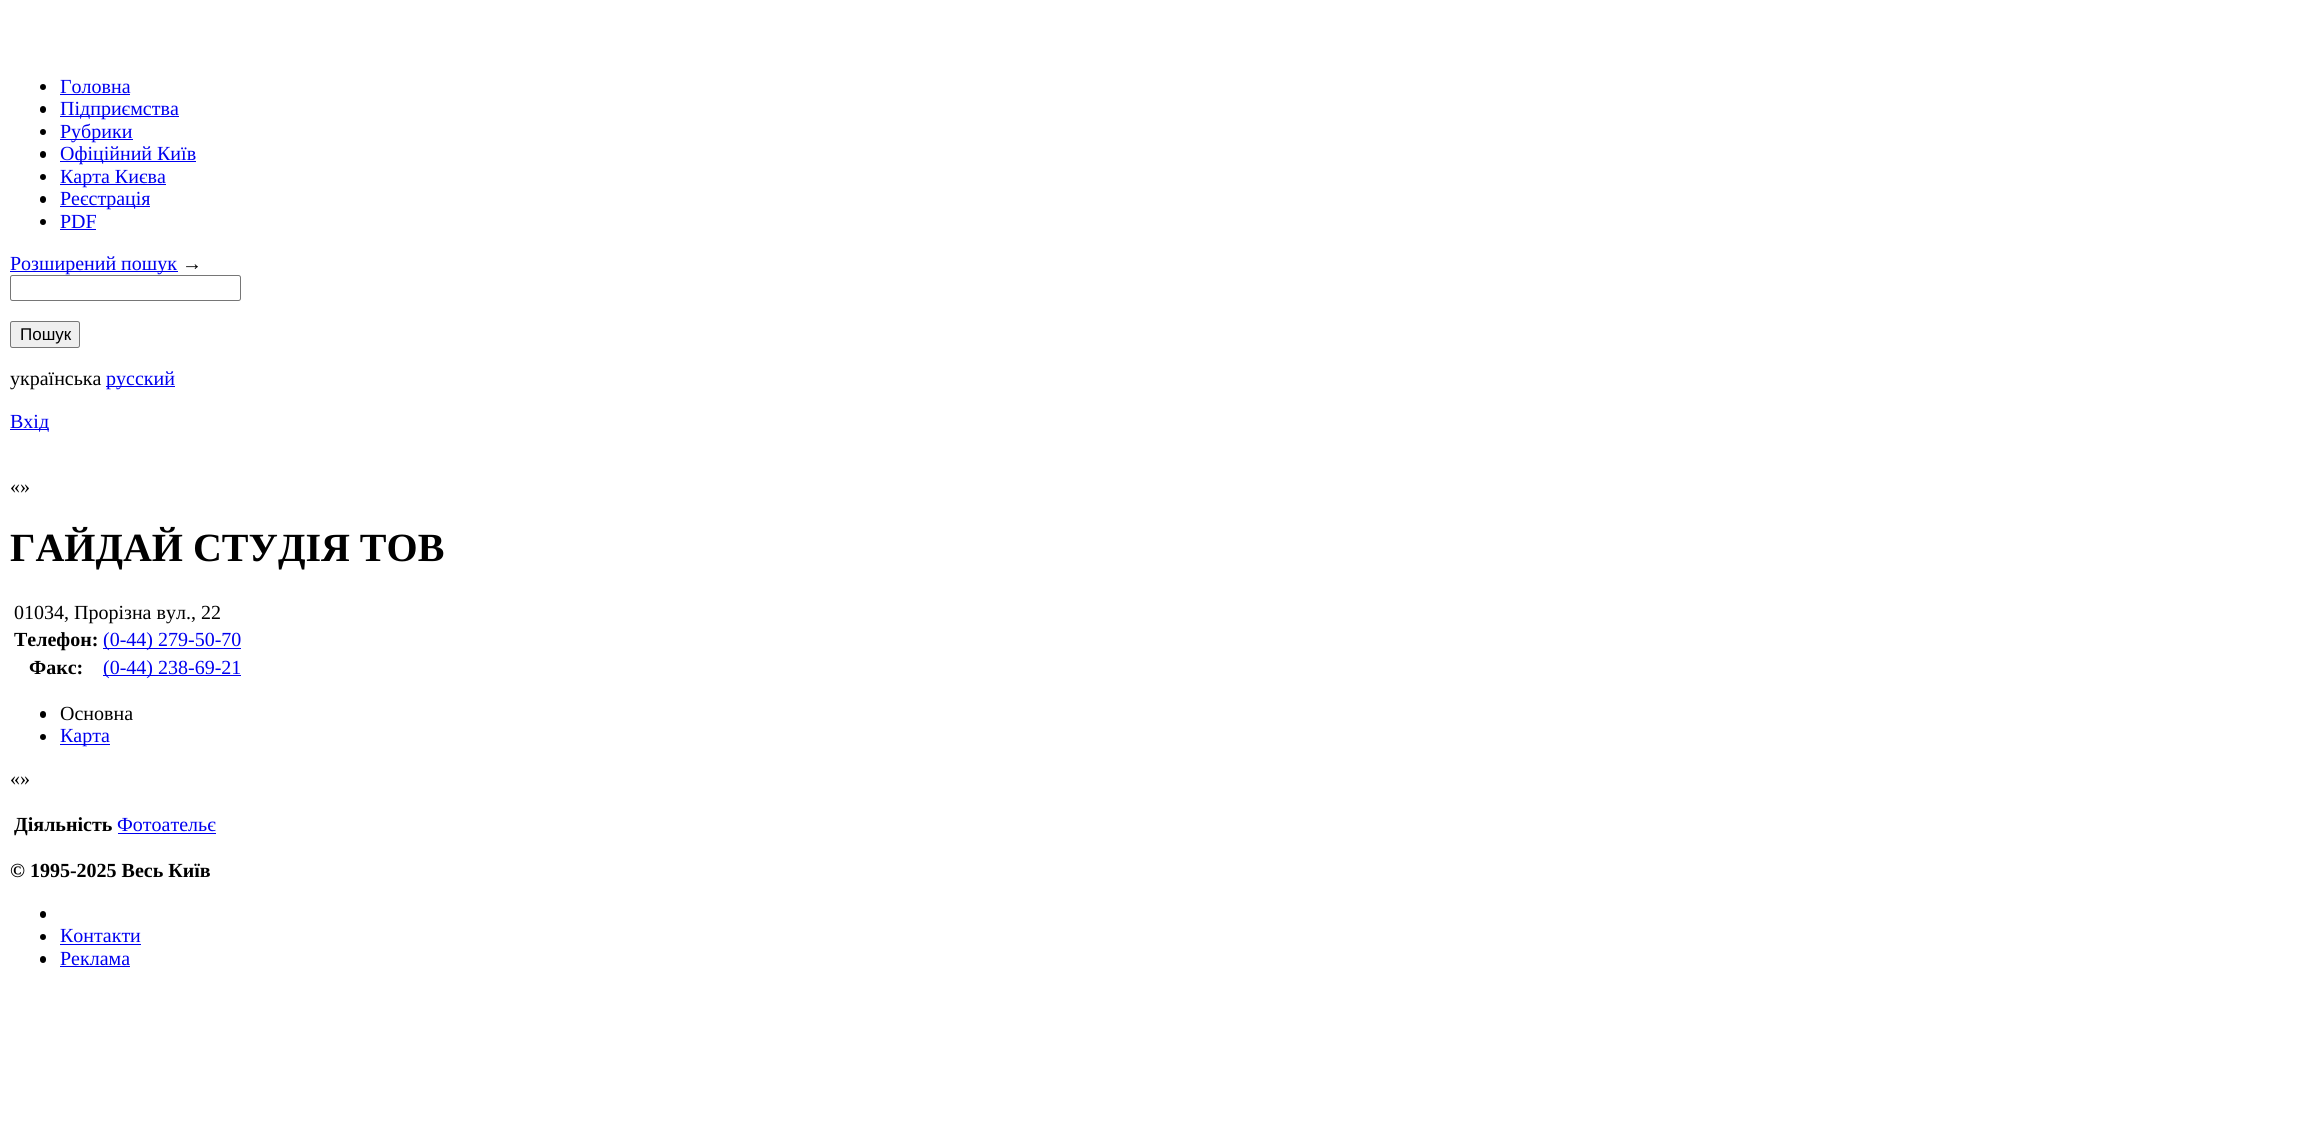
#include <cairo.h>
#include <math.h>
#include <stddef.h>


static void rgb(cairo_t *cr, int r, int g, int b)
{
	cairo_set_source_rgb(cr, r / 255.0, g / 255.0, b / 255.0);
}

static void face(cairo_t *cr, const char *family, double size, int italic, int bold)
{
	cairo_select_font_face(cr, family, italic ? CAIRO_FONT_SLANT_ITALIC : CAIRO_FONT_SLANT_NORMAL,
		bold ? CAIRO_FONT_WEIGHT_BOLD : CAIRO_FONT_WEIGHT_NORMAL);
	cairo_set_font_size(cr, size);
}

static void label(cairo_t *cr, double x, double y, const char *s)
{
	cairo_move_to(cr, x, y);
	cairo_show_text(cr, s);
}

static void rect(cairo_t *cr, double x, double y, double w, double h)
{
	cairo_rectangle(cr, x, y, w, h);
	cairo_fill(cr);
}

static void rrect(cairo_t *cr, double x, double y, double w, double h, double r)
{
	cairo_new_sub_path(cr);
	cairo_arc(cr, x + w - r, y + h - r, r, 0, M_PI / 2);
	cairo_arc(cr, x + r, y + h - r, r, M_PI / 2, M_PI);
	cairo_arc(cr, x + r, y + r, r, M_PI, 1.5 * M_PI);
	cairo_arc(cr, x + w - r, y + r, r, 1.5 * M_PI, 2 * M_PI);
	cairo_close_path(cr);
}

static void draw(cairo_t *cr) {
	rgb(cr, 255, 255, 255);
	cairo_paint(cr);
	rgb(cr, 0, 0, 0);
	cairo_arc(cr, 43, 87, 3, 0, 2 * M_PI);
	cairo_fill(cr);
	face(cr, "Liberation Serif", 20, 0, 0);
	rgb(cr, 0, 0, 238);
	label(cr, 60, 93, "Головна");
	rect(cr, 60, 94, 70, 1);
	rgb(cr, 0, 0, 0);
	rrect(cr, 40, 106, 6, 7, 3);
	cairo_fill(cr);
	rgb(cr, 0, 0, 238);
	rect(cr, 60, 116, 119, 1);
	label(cr, 60, 115, "Підприємства");
	rgb(cr, 0, 0, 0);
	cairo_new_path(cr);
	cairo_arc(cr, 43, 132, 3, 0, 2 * M_PI);
	cairo_fill(cr);
	rgb(cr, 0, 0, 238);
	rect(cr, 60, 139, 73, 1);
	label(cr, 60, 138, "Рубрики");
	rgb(cr, 0, 0, 0);
	rrect(cr, 40, 151, 6, 7, 3);
	cairo_fill(cr);
	rgb(cr, 0, 0, 238);
	rect(cr, 60, 161, 136, 1);
	label(cr, 60, 160, "Офіційний Київ");
	rgb(cr, 0, 0, 0);
	cairo_new_path(cr);
	cairo_arc(cr, 43, 177, 3, 0, 2 * M_PI);
	cairo_fill(cr);
	rgb(cr, 0, 0, 238);
	rect(cr, 60, 184, 106, 1);
	label(cr, 60, 183, "Карта Києва");
	rgb(cr, 0, 0, 0);
	rrect(cr, 40, 196, 6, 7, 3);
	cairo_fill(cr);
	rgb(cr, 0, 0, 238);
	rect(cr, 60, 206, 90, 1);
	label(cr, 60, 205, "Реєстрація");
	rgb(cr, 0, 0, 0);
	cairo_new_path(cr);
	cairo_arc(cr, 43, 222, 3, 0, 2 * M_PI);
	cairo_fill(cr);
	rgb(cr, 0, 0, 238);
	label(cr, 60, 228, "PDF");
	rect(cr, 60, 229, 36, 1);
	rect(cr, 10, 271, 168, 1);
	label(cr, 10, 270, "Розширений пошук");
	rgb(cr, 0, 0, 0);
	label(cr, 182, 270, "→");
	rrect(cr, 10.5, 275.5, 230, 25, 2);
	rgb(cr, 118, 118, 118);
	cairo_set_line_width(cr, 1);
	cairo_stroke(cr);
	rgb(cr, 239, 239, 239);
	rrect(cr, 10.5, 321.5, 69, 26, 2);
	cairo_fill_preserve(cr);
	rgb(cr, 118, 118, 118);
	cairo_stroke(cr);
	face(cr, "Liberation Sans", 17, 0, 0);
	rgb(cr, 0, 0, 0);
	label(cr, 20, 340, "Пошук");
	face(cr, "Liberation Serif", 20, 0, 0);
	label(cr, 10, 385, "українська");
	rgb(cr, 0, 0, 238);
	rect(cr, 106, 386, 69, 1);
	label(cr, 106, 385, "русский");
	rect(cr, 10, 429, 39, 1);
	label(cr, 10, 428, "Вхід");
	rgb(cr, 0, 0, 0);
	label(cr, 10, 493, "«»");
	face(cr, "Liberation Serif", 40, 0, 1);
	label(cr, 10, 561, "ГАЙДАЙ СТУДІЯ ТОВ");
	face(cr, "Liberation Serif", 20, 0, 0);
	label(cr, 14, 619, "01034, Прорізна вул., 22");
	face(cr, "Liberation Serif", 20, 0, 1);
	label(cr, 14, 646, "Телефон:");
	rgb(cr, 0, 0, 238);
	rect(cr, 103, 648, 138, 1);
	face(cr, "Liberation Serif", 20, 0, 0);
	label(cr, 103, 646, "(0-44) 279-50-70");
	face(cr, "Liberation Serif", 20, 0, 1);
	rgb(cr, 0, 0, 0);
	label(cr, 29, 674, "Факс:");
	rgb(cr, 0, 0, 238);
	rect(cr, 103, 675, 138, 1);
	face(cr, "Liberation Serif", 20, 0, 0);
	label(cr, 103, 674, "(0-44) 238-69-21");
	rgb(cr, 0, 0, 0);
	rrect(cr, 40, 711, 6, 7, 3);
	cairo_fill(cr);
	label(cr, 60, 720, "Основна");
	cairo_new_path(cr);
	cairo_arc(cr, 43, 737, 3, 0, 2 * M_PI);
	cairo_fill(cr);
	rgb(cr, 0, 0, 238);
	rect(cr, 60, 744, 50, 1);
	label(cr, 60, 742, "Карта");
	rgb(cr, 0, 0, 0);
	label(cr, 10, 785, "«»");
	face(cr, "Liberation Serif", 20, 0, 1);
	label(cr, 14, 831, "Діяльність");
	face(cr, "Liberation Serif", 20, 0, 0);
	rgb(cr, 0, 0, 238);
	label(cr, 117, 831, "Фотоательє");
	rect(cr, 118, 833, 98, 1);
	face(cr, "Liberation Serif", 20, 0, 1);
	rgb(cr, 0, 0, 0);
	label(cr, 10, 877, "© 1995-2025 Весь Київ");
	rrect(cr, 40, 911, 6, 7, 3);
	cairo_fill(cr);
	cairo_arc(cr, 43, 937, 3, 0, 2 * M_PI);
	cairo_fill(cr);
	face(cr, "Liberation Serif", 20, 0, 0);
	rgb(cr, 0, 0, 238);
	label(cr, 60, 942, "Контакти");
	rect(cr, 60, 944, 81, 1);
	rgb(cr, 0, 0, 0);
	rrect(cr, 40, 956, 6, 7, 3);
	cairo_fill(cr);
	rgb(cr, 0, 0, 238);
	label(cr, 60, 965, "Реклама");
	rect(cr, 60, 966, 70, 1);
}

int main(void) {
	cairo_surface_t *surface = cairo_image_surface_create(CAIRO_FORMAT_RGB24, 2312, 1142);
	cairo_t *cr = cairo_create(surface);
	cairo_font_options_t *options = cairo_font_options_create();
	cairo_font_options_set_hint_metrics(options, CAIRO_HINT_METRICS_OFF);
	cairo_font_options_set_hint_style(options, CAIRO_HINT_STYLE_NONE);
	cairo_set_font_options(cr, options);
	cairo_set_miter_limit(cr, 4);
	draw(cr);
	cairo_surface_write_to_png(surface, "render.png");
	cairo_font_options_destroy(options);
	cairo_destroy(cr);
	cairo_surface_destroy(surface);
	return 0;
}
